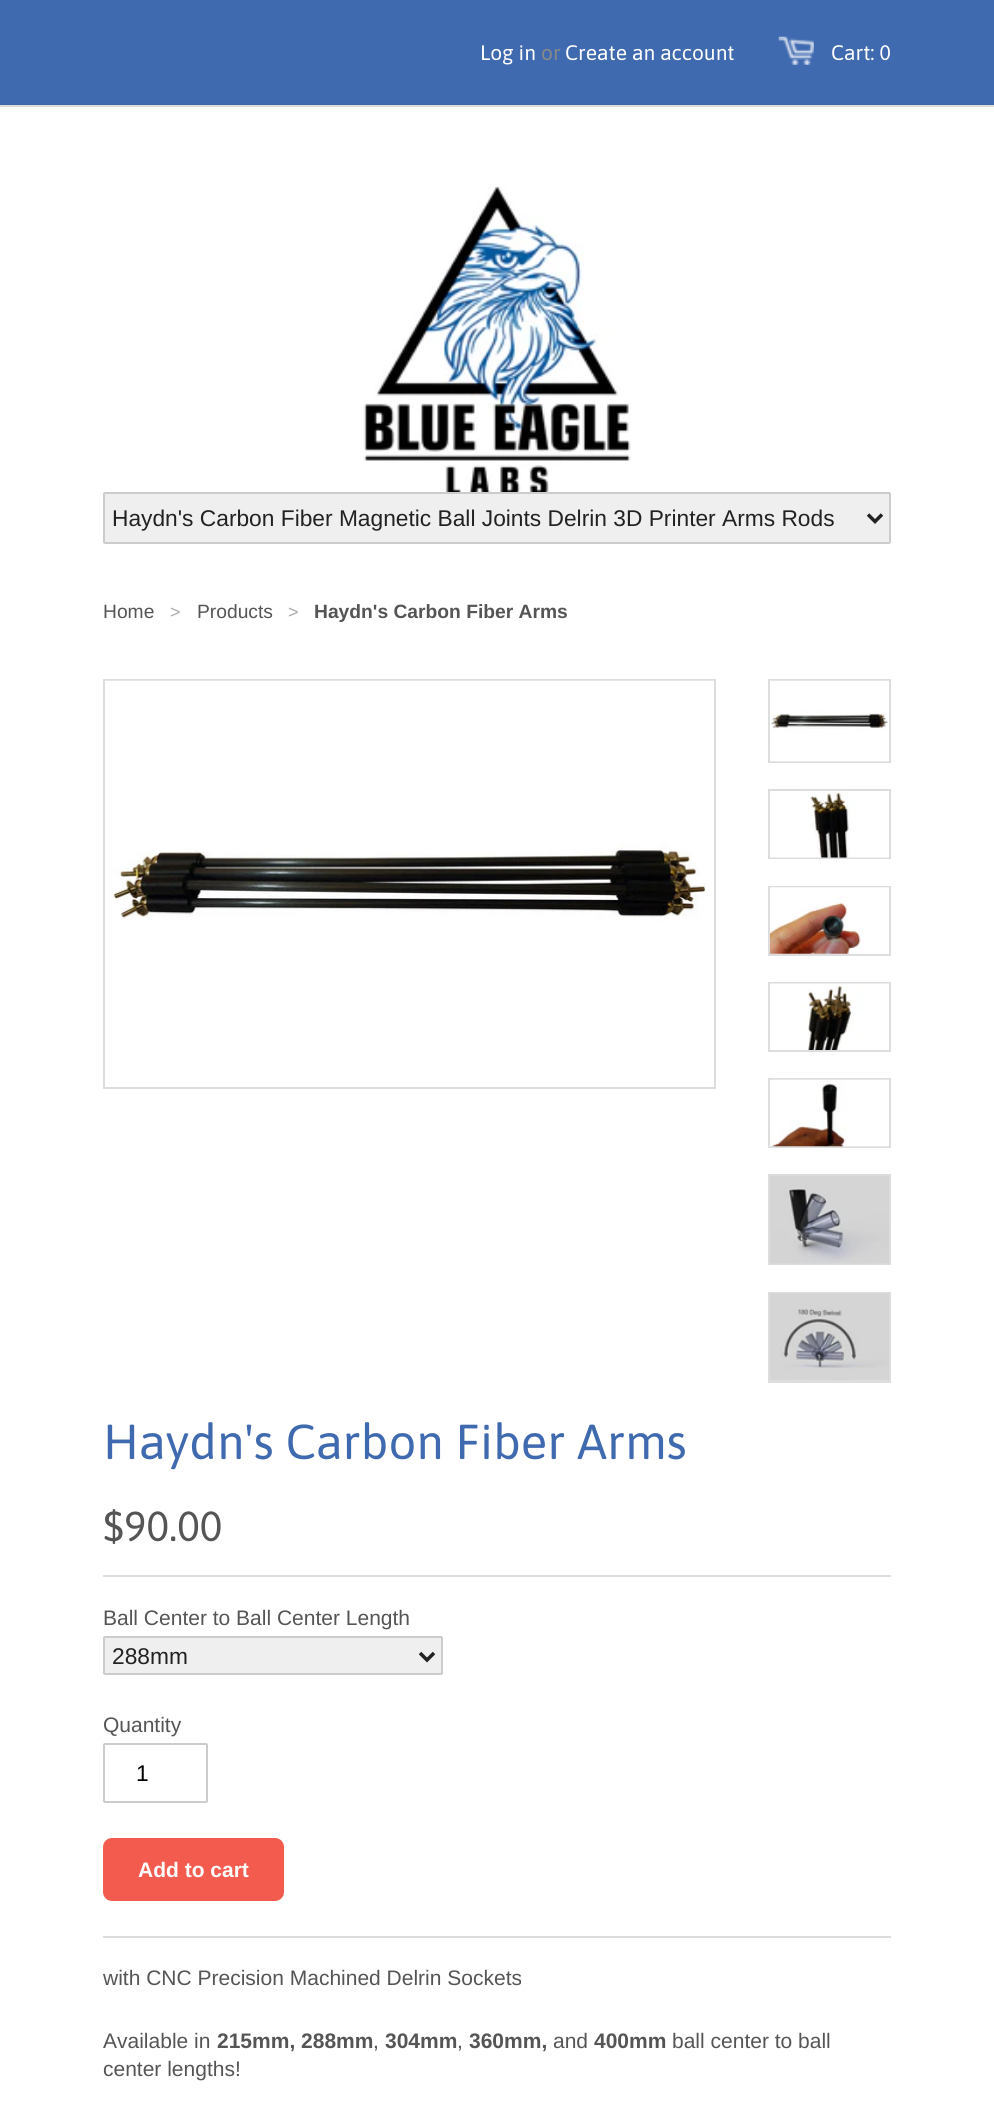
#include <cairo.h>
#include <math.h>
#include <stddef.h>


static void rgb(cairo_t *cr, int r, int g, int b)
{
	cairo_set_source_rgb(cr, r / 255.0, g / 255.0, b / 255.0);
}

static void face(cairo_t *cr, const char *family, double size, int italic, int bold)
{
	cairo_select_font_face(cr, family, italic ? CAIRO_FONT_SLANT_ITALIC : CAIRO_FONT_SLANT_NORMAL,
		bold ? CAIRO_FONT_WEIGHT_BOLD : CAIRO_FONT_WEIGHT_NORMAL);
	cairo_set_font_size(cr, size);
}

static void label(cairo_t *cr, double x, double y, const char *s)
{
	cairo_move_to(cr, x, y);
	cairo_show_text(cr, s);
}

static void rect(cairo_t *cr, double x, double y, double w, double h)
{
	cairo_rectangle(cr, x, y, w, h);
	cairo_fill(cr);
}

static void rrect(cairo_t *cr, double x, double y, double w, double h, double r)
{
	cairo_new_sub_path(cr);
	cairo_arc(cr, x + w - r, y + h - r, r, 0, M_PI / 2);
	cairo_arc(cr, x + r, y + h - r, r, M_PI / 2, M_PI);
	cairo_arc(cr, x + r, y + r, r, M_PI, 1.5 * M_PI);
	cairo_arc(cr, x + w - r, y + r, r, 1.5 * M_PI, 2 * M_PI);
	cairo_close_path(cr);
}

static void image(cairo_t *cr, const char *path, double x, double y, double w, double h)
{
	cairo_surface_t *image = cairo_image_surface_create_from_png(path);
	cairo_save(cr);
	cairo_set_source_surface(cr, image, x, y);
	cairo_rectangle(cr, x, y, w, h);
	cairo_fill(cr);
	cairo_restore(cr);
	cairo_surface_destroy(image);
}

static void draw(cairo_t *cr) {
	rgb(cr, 255, 255, 255);
	cairo_paint(cr);
	rgb(cr, 64, 106, 176);
	rect(cr, 0, 0, 994, 105);
	rgb(cr, 221, 221, 221);
	rect(cr, 0, 105, 994, 2);
	face(cr, "Asap", 21, 0, 0);
	rgb(cr, 255, 255, 255);
	label(cr, 480, 60, "Log in");
	rgb(cr, 136, 136, 136);
	label(cr, 541, 60, "or");
	rgb(cr, 255, 255, 255);
	label(cr, 565, 60, "Create an account");
	image(cr, "image0.png", 778, 36, 36, 29);
	label(cr, 831, 60, "Cart: 0");
	image(cr, "image1.png", 363, 186, 268, 306);
	rgb(cr, 239, 239, 239);
	rrect(cr, 104, 493, 786, 50, 1);
	cairo_fill_preserve(cr);
	rgb(cr, 204, 204, 204);
	cairo_stroke(cr);
	cairo_new_path(cr);
	cairo_move_to(cr, 868, 514.5);
	cairo_line_to(cr, 875, 521.5);
	cairo_line_to(cr, 882, 514.5);
	rgb(cr, 34, 34, 34);
	cairo_set_line_width(cr, 3.5);
	cairo_stroke(cr);
	face(cr, "Liberation Sans", 22.75, 0, 0);
	label(cr, 112, 526, "Haydn's Carbon Fiber Magnetic Ball Joints Delrin 3D Printer Arms Rods");
	face(cr, "Liberation Sans", 19.25, 0, 0);
	rgb(cr, 85, 85, 85);
	label(cr, 103, 618, "Home");
	face(cr, "Liberation Sans", 18, 0, 0);
	rgb(cr, 170, 170, 170);
	label(cr, 170, 618, ">");
	face(cr, "Liberation Sans", 19.25, 0, 0);
	rgb(cr, 85, 85, 85);
	label(cr, 197, 618, "Products");
	face(cr, "Liberation Sans", 18, 0, 0);
	rgb(cr, 170, 170, 170);
	label(cr, 288, 618, ">");
	face(cr, "Liberation Sans", 19.25, 0, 1);
	rgb(cr, 85, 85, 85);
	label(cr, 314, 618, "Haydn's Carbon Fiber Arms");
	cairo_rectangle(cr, 104, 680, 611, 408);
	rgb(cr, 221, 221, 221);
	cairo_set_line_width(cr, 2);
	cairo_stroke(cr);
	image(cr, "image2.png", 105, 680, 609, 241);
	cairo_rectangle(cr, 769, 680, 121, 82);
	cairo_stroke(cr);
	image(cr, "image3.png", 770, 680, 119, 82);
	cairo_rectangle(cr, 769, 790, 121, 68);
	cairo_stroke(cr);
	image(cr, "image4.png", 770, 791, 119, 67);
	cairo_rectangle(cr, 769, 887, 121, 68);
	cairo_stroke(cr);
	image(cr, "image5.png", 770, 887, 119, 67);
	cairo_rectangle(cr, 769, 983, 121, 68);
	cairo_stroke(cr);
	image(cr, "image6.png", 770, 983, 119, 67);
	cairo_rectangle(cr, 769, 1079, 121, 68);
	cairo_stroke(cr);
	image(cr, "image7.png", 770, 1079, 119, 68);
	cairo_rectangle(cr, 769, 1175, 121, 89);
	cairo_stroke(cr);
	image(cr, "image8.png", 770, 1176, 119, 88);
	cairo_rectangle(cr, 769, 1293, 121, 89);
	cairo_stroke(cr);
	image(cr, "image9.png", 770, 1293, 119, 88);
	face(cr, "Asap", 49, 0, 0);
	rgb(cr, 64, 106, 176);
	label(cr, 103, 1459, "Haydn's Carbon Fiber Arms");
	face(cr, "Asap", 42, 0, 0);
	rgb(cr, 85, 85, 85);
	label(cr, 103, 1541, "$90.00");
	rgb(cr, 221, 221, 221);
	rect(cr, 103, 1575, 788, 2);
	rect(cr, 103, 1936, 788, 2);
	face(cr, "Liberation Sans", 21, 0, 0);
	rgb(cr, 85, 85, 85);
	label(cr, 103, 1625, "Ball Center to Ball Center Length");
	rgb(cr, 239, 239, 239);
	rrect(cr, 104, 1637, 338, 37, 1);
	cairo_fill_preserve(cr);
	rgb(cr, 204, 204, 204);
	cairo_stroke(cr);
	cairo_new_path(cr);
	cairo_move_to(cr, 420, 1653);
	cairo_line_to(cr, 427, 1660);
	cairo_line_to(cr, 434, 1653);
	rgb(cr, 34, 34, 34);
	cairo_set_line_width(cr, 3.5);
	cairo_stroke(cr);
	face(cr, "Liberation Sans", 22.75, 0, 0);
	label(cr, 112, 1664, "288mm");
	face(cr, "Liberation Sans", 21, 0, 0);
	rgb(cr, 85, 85, 85);
	label(cr, 103, 1732, "Quantity");
	rrect(cr, 104, 1744, 103, 58, 1);
	rgb(cr, 204, 204, 204);
	cairo_set_line_width(cr, 2);
	cairo_stroke(cr);
	face(cr, "Liberation Sans", 22.75, 0, 0);
	rgb(cr, 0, 0, 0);
	label(cr, 136, 1781, "1");
	rgb(cr, 244, 91, 79);
	rrect(cr, 103, 1838, 181, 63, 9);
	cairo_fill(cr);
	face(cr, "Liberation Sans", 21, 0, 1);
	rgb(cr, 255, 255, 255);
	label(cr, 138, 1877, "Add to cart");
	face(cr, "Liberation Sans", 21, 0, 0);
	rgb(cr, 85, 85, 85);
	label(cr, 103, 1985, "with CNC Precision Machined Delrin Sockets");
	label(cr, 103, 2048, "Available in");
	face(cr, "Liberation Sans", 21, 0, 1);
	label(cr, 217, 2048, "215mm, 288mm");
	face(cr, "Liberation Sans", 21, 0, 0);
	label(cr, 373, 2048, ",");
	face(cr, "Liberation Sans", 21, 0, 1);
	label(cr, 385, 2048, "304mm");
	face(cr, "Liberation Sans", 21, 0, 0);
	label(cr, 457, 2048, ",");
	face(cr, "Liberation Sans", 21, 0, 1);
	label(cr, 469, 2048, "360mm,");
	face(cr, "Liberation Sans", 21, 0, 0);
	label(cr, 553, 2048, "and");
	face(cr, "Liberation Sans", 21, 0, 1);
	label(cr, 594, 2048, "400mm");
	face(cr, "Liberation Sans", 21, 0, 0);
	label(cr, 672, 2048, "ball center to ball");
	label(cr, 103, 2076, "center lengths!");
}

int main(void) {
	cairo_surface_t *surface = cairo_image_surface_create(CAIRO_FORMAT_RGB24, 994, 2112);
	cairo_t *cr = cairo_create(surface);
	cairo_font_options_t *options = cairo_font_options_create();
	cairo_font_options_set_hint_metrics(options, CAIRO_HINT_METRICS_OFF);
	cairo_font_options_set_hint_style(options, CAIRO_HINT_STYLE_NONE);
	cairo_set_font_options(cr, options);
	cairo_set_miter_limit(cr, 4);
	draw(cr);
	cairo_surface_write_to_png(surface, "render.png");
	cairo_font_options_destroy(options);
	cairo_destroy(cr);
	cairo_surface_destroy(surface);
	return 0;
}
